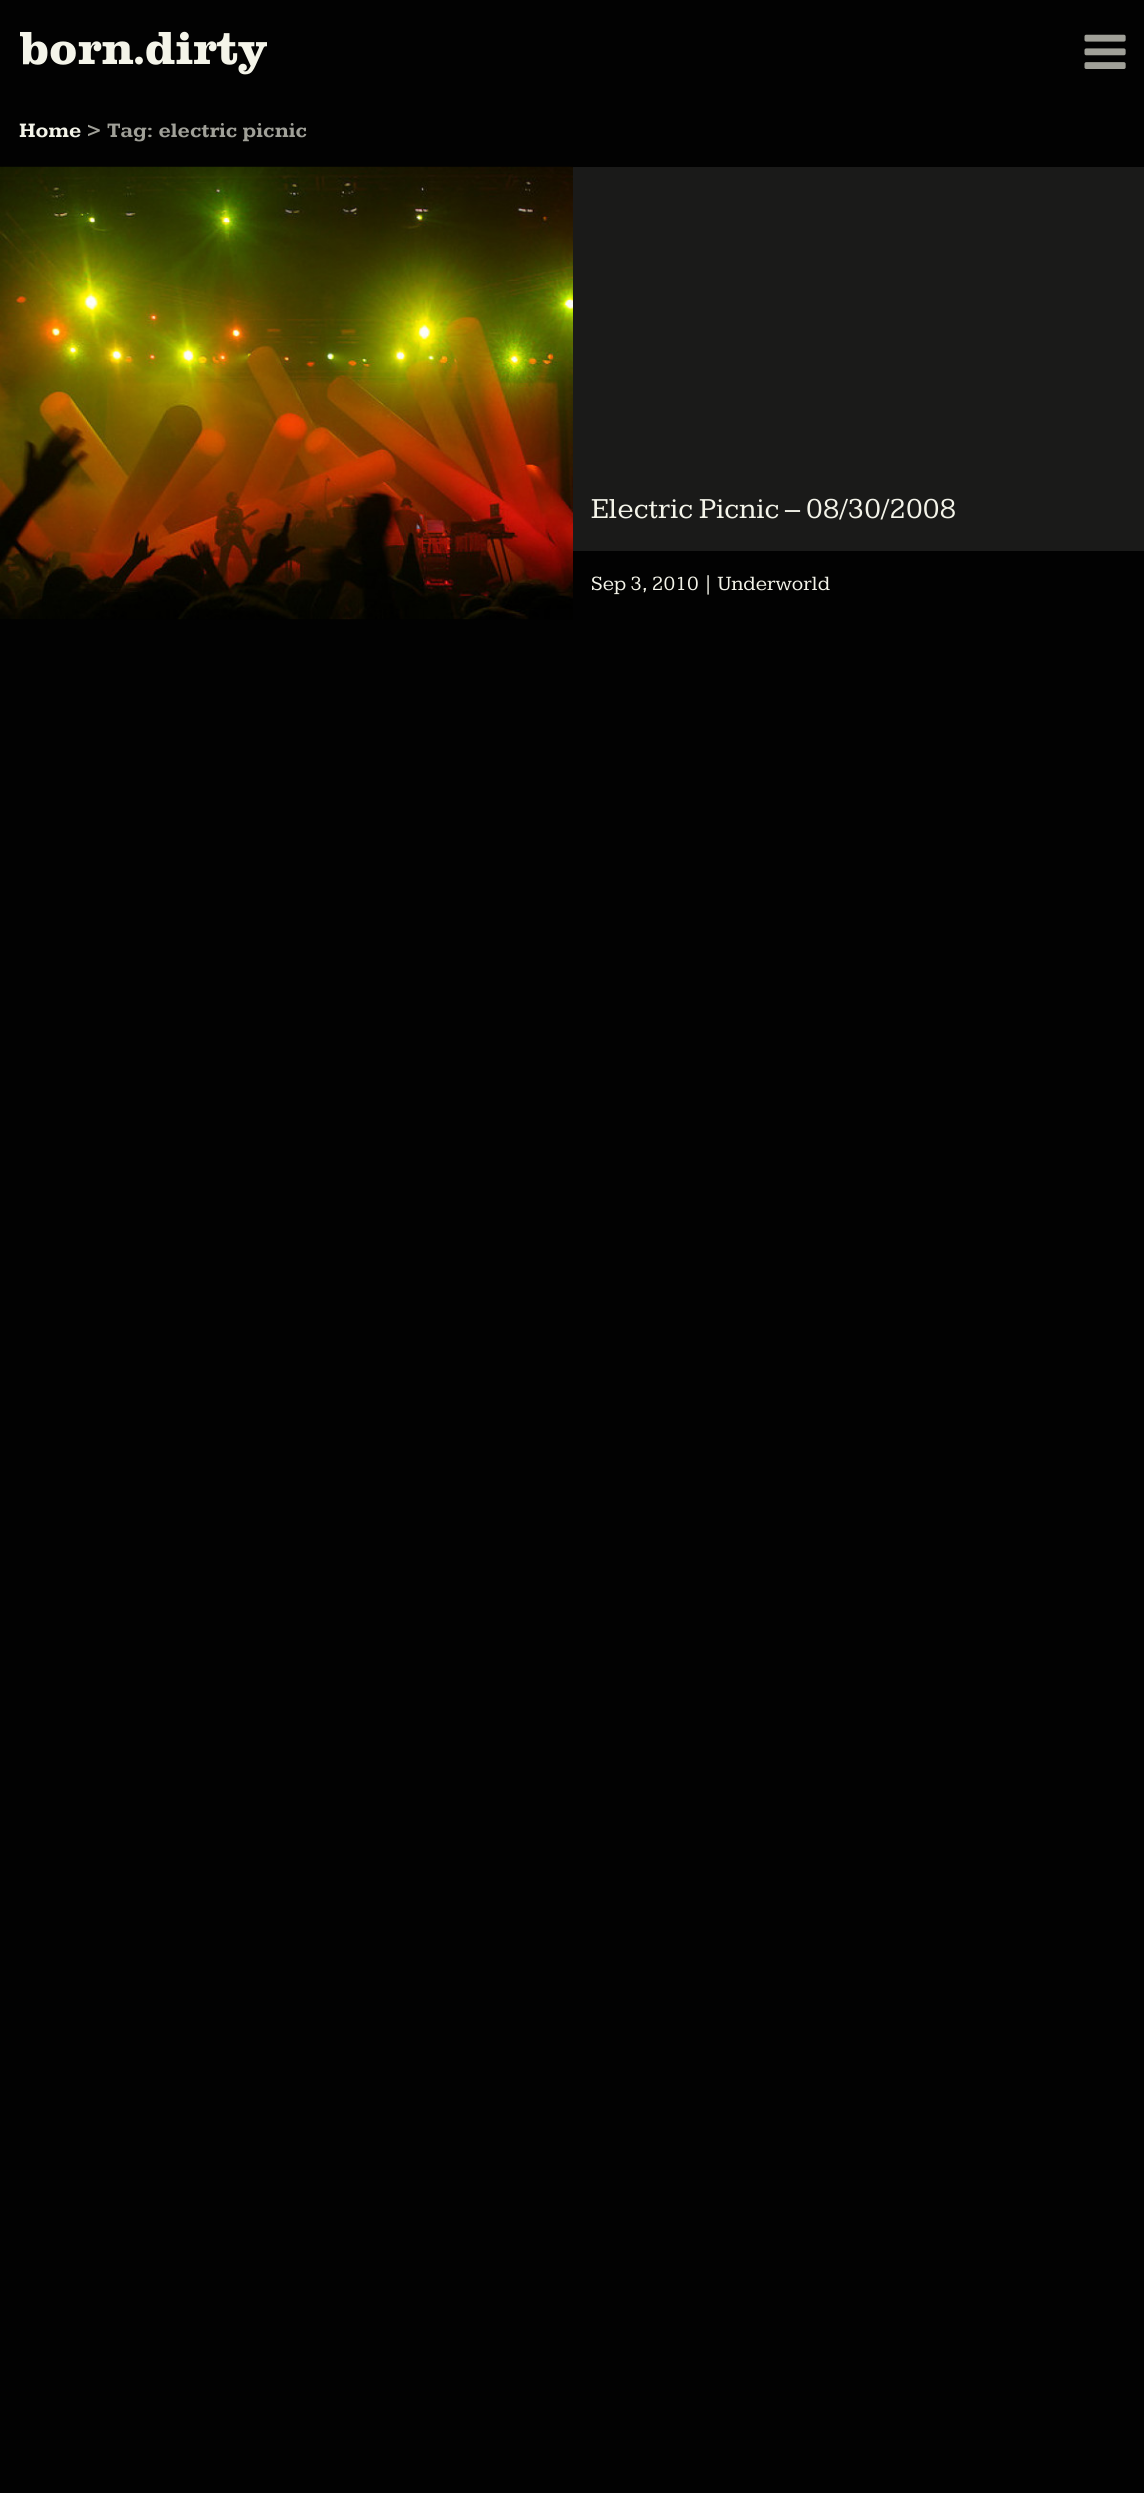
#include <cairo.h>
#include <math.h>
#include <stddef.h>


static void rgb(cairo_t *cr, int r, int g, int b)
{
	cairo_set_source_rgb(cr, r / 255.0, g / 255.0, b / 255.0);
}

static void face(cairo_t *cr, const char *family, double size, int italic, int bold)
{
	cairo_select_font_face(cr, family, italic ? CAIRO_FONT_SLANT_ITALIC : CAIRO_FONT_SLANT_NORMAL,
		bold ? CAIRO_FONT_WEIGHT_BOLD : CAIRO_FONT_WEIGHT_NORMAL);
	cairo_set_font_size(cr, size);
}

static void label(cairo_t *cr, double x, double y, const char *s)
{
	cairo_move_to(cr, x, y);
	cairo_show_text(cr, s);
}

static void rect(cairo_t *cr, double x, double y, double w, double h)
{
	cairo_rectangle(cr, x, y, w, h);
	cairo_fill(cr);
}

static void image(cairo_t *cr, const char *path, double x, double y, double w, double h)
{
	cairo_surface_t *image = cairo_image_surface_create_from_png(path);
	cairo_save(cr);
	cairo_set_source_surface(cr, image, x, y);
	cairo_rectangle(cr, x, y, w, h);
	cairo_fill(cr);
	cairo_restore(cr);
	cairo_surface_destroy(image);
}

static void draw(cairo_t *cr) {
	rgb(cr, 2, 2, 2);
	cairo_paint(cr);
	cairo_save(cr);
	cairo_rectangle(cr, 20, 20, 1107, 60);
	cairo_clip(cr);
	face(cr, "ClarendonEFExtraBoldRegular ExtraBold", 48, 0, 0);
	rgb(cr, 244, 244, 233);
	label(cr, 19, 64, "born.dirty");
	cairo_restore(cr);
	image(cr, "image0.png", 1084, 34, 42, 35);
	face(cr, "Kameron", 21, 0, 1);
	rgb(cr, 244, 244, 233);
	label(cr, 19, 137, "Home");
	rgb(cr, 160, 160, 152);
	label(cr, 86, 137, "> Tag: electric picnic");
	image(cr, "image1.png", 0, 166, 573, 454);
	rgb(cr, 26, 26, 25);
	rect(cr, 573, 167, 571, 384);
	face(cr, "Kameron", 30, 0, 0);
	rgb(cr, 244, 244, 233);
	label(cr, 591, 518, "Electric Picnic – 08/30/2008");
	face(cr, "Kameron", 21, 0, 0);
	label(cr, 591, 590, "Sep 3, 2010 | Underworld");
}

int main(void) {
	cairo_surface_t *surface = cairo_image_surface_create(CAIRO_FORMAT_RGB24, 1144, 2493);
	cairo_t *cr = cairo_create(surface);
	cairo_font_options_t *options = cairo_font_options_create();
	cairo_font_options_set_hint_metrics(options, CAIRO_HINT_METRICS_OFF);
	cairo_font_options_set_hint_style(options, CAIRO_HINT_STYLE_NONE);
	cairo_set_font_options(cr, options);
	cairo_set_miter_limit(cr, 4);
	draw(cr);
	cairo_surface_write_to_png(surface, "render.png");
	cairo_font_options_destroy(options);
	cairo_destroy(cr);
	cairo_surface_destroy(surface);
	return 0;
}
